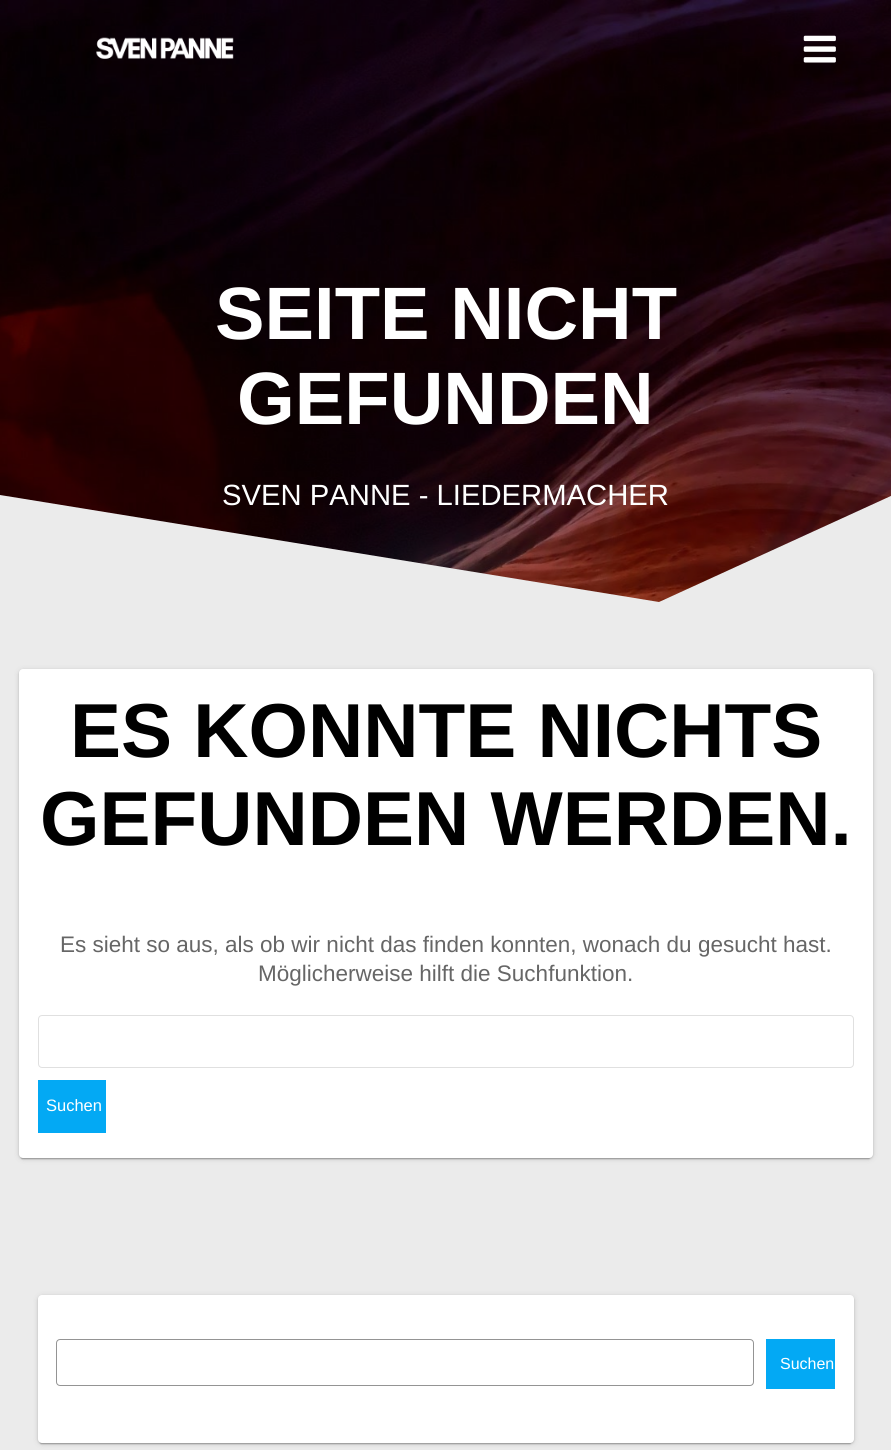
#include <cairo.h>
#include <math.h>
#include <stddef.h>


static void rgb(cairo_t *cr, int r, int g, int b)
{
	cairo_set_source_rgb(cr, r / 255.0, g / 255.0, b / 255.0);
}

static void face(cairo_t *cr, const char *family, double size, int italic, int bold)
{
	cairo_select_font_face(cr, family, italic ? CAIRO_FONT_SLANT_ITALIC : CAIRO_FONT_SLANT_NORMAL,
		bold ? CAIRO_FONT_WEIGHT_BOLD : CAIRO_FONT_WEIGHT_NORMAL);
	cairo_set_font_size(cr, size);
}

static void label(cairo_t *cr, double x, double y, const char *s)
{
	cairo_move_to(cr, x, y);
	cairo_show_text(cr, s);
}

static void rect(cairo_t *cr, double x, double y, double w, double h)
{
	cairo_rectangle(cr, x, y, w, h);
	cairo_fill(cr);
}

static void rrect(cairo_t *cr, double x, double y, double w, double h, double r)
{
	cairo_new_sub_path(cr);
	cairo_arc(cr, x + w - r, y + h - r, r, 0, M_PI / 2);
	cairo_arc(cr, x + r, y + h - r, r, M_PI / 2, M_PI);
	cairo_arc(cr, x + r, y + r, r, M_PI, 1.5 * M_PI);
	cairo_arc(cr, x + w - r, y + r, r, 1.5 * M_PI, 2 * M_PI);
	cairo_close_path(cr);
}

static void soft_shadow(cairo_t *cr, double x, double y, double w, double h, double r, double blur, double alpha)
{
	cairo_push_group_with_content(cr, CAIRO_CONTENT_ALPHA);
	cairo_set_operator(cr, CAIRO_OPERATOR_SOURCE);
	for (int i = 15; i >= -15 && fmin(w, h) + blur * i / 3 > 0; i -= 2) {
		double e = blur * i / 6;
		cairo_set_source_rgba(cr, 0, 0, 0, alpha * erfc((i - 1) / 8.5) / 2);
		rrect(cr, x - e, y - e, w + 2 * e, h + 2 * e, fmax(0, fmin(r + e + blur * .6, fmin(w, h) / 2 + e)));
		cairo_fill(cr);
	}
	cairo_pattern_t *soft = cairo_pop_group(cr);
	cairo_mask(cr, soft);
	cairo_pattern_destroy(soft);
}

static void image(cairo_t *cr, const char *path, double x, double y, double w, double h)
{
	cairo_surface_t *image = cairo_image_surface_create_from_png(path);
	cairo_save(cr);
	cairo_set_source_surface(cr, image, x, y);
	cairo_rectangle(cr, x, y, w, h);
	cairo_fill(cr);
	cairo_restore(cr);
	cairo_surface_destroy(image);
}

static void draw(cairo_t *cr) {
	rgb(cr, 235, 235, 235);
	cairo_paint(cr);
	image(cr, "image2.png", 0, 0, 891, 602);
	image(cr, "image0.png", 96, 37, 138, 22);
	image(cr, "image1.png", 803, 35, 33, 28);
	face(cr, "Liberation Sans", 74.25, 0, 1);
	rgb(cr, 255, 255, 255);
	label(cr, 215, 339, "SEITE NICHT");
	label(cr, 237, 424, "GEFUNDEN");
	face(cr, "Liberation Sans", 29.25, 0, 0);
	label(cr, 222, 505, "SVEN PANNE - LIEDERMACHER");
	rgb(cr, 235, 235, 235);
	cairo_new_path(cr);
	cairo_move_to(cr, 659, 602);
	cairo_line_to(cr, 0, 495);
	cairo_line_to(cr, 0, 608);
	cairo_line_to(cr, 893, 608);
	cairo_line_to(cr, 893, 495);
	cairo_close_path(cr);
	cairo_fill(cr);
	rgb(cr, 0, 0, 0);
	soft_shadow(cr, 19, 670, 854, 489, 4, 3, 0.12);
	soft_shadow(cr, 21, 675, 849, 484, 1, 0.5, 0.2);
	soft_shadow(cr, 19, 670, 854, 489, 4, 1, 0.14);
	rgb(cr, 255, 255, 255);
	rrect(cr, 19, 669, 854, 489, 4);
	cairo_fill(cr);
	face(cr, "Liberation Sans", 76.5, 0, 1);
	rgb(cr, 0, 0, 0);
	label(cr, 70, 757, "ES KONNTE NICHTS");
	label(cr, 40, 845, "GEFUNDEN WERDEN.");
	face(cr, "Liberation Sans", 22.5, 0, 0);
	rgb(cr, 102, 102, 102);
	label(cr, 60, 952, "Es sieht so aus, als ob wir nicht das finden konnten, wonach du gesucht hast.");
	label(cr, 258, 981, "Möglicherweise hilft die Suchfunktion.");
	rrect(cr, 38.5, 1015.5, 815, 52, 3.5);
	rgb(cr, 224, 224, 224);
	cairo_set_line_width(cr, 1);
	cairo_stroke(cr);
	rgb(cr, 3, 169, 244);
	rect(cr, 38, 1080, 68, 53);
	face(cr, "Liberation Sans", 16.5, 0, 0);
	rgb(cr, 255, 255, 255);
	label(cr, 46, 1111, "Suchen");
	rgb(cr, 0, 0, 0);
	soft_shadow(cr, 38, 1296, 816, 148, 4, 3, 0.12);
	soft_shadow(cr, 40, 1301, 811, 143, 1, 0.5, 0.2);
	soft_shadow(cr, 38, 1296, 816, 148, 4, 1, 0.14);
	rgb(cr, 255, 255, 255);
	rrect(cr, 38, 1295, 816, 148, 4);
	cairo_fill(cr);
	rrect(cr, 56.5, 1339.5, 697, 46, 3.5);
	rgb(cr, 148, 148, 148);
	cairo_stroke(cr);
	rgb(cr, 3, 169, 244);
	rect(cr, 766, 1339, 69, 50);
	face(cr, "Liberation Sans", 16, 0, 0);
	rgb(cr, 255, 255, 255);
	label(cr, 780, 1369, "Suchen");
}

int main(void) {
	cairo_surface_t *surface = cairo_image_surface_create(CAIRO_FORMAT_RGB24, 891, 1450);
	cairo_t *cr = cairo_create(surface);
	cairo_font_options_t *options = cairo_font_options_create();
	cairo_font_options_set_hint_metrics(options, CAIRO_HINT_METRICS_OFF);
	cairo_font_options_set_hint_style(options, CAIRO_HINT_STYLE_NONE);
	cairo_set_font_options(cr, options);
	cairo_set_miter_limit(cr, 4);
	draw(cr);
	cairo_surface_write_to_png(surface, "render.png");
	cairo_font_options_destroy(options);
	cairo_destroy(cr);
	cairo_surface_destroy(surface);
	return 0;
}
